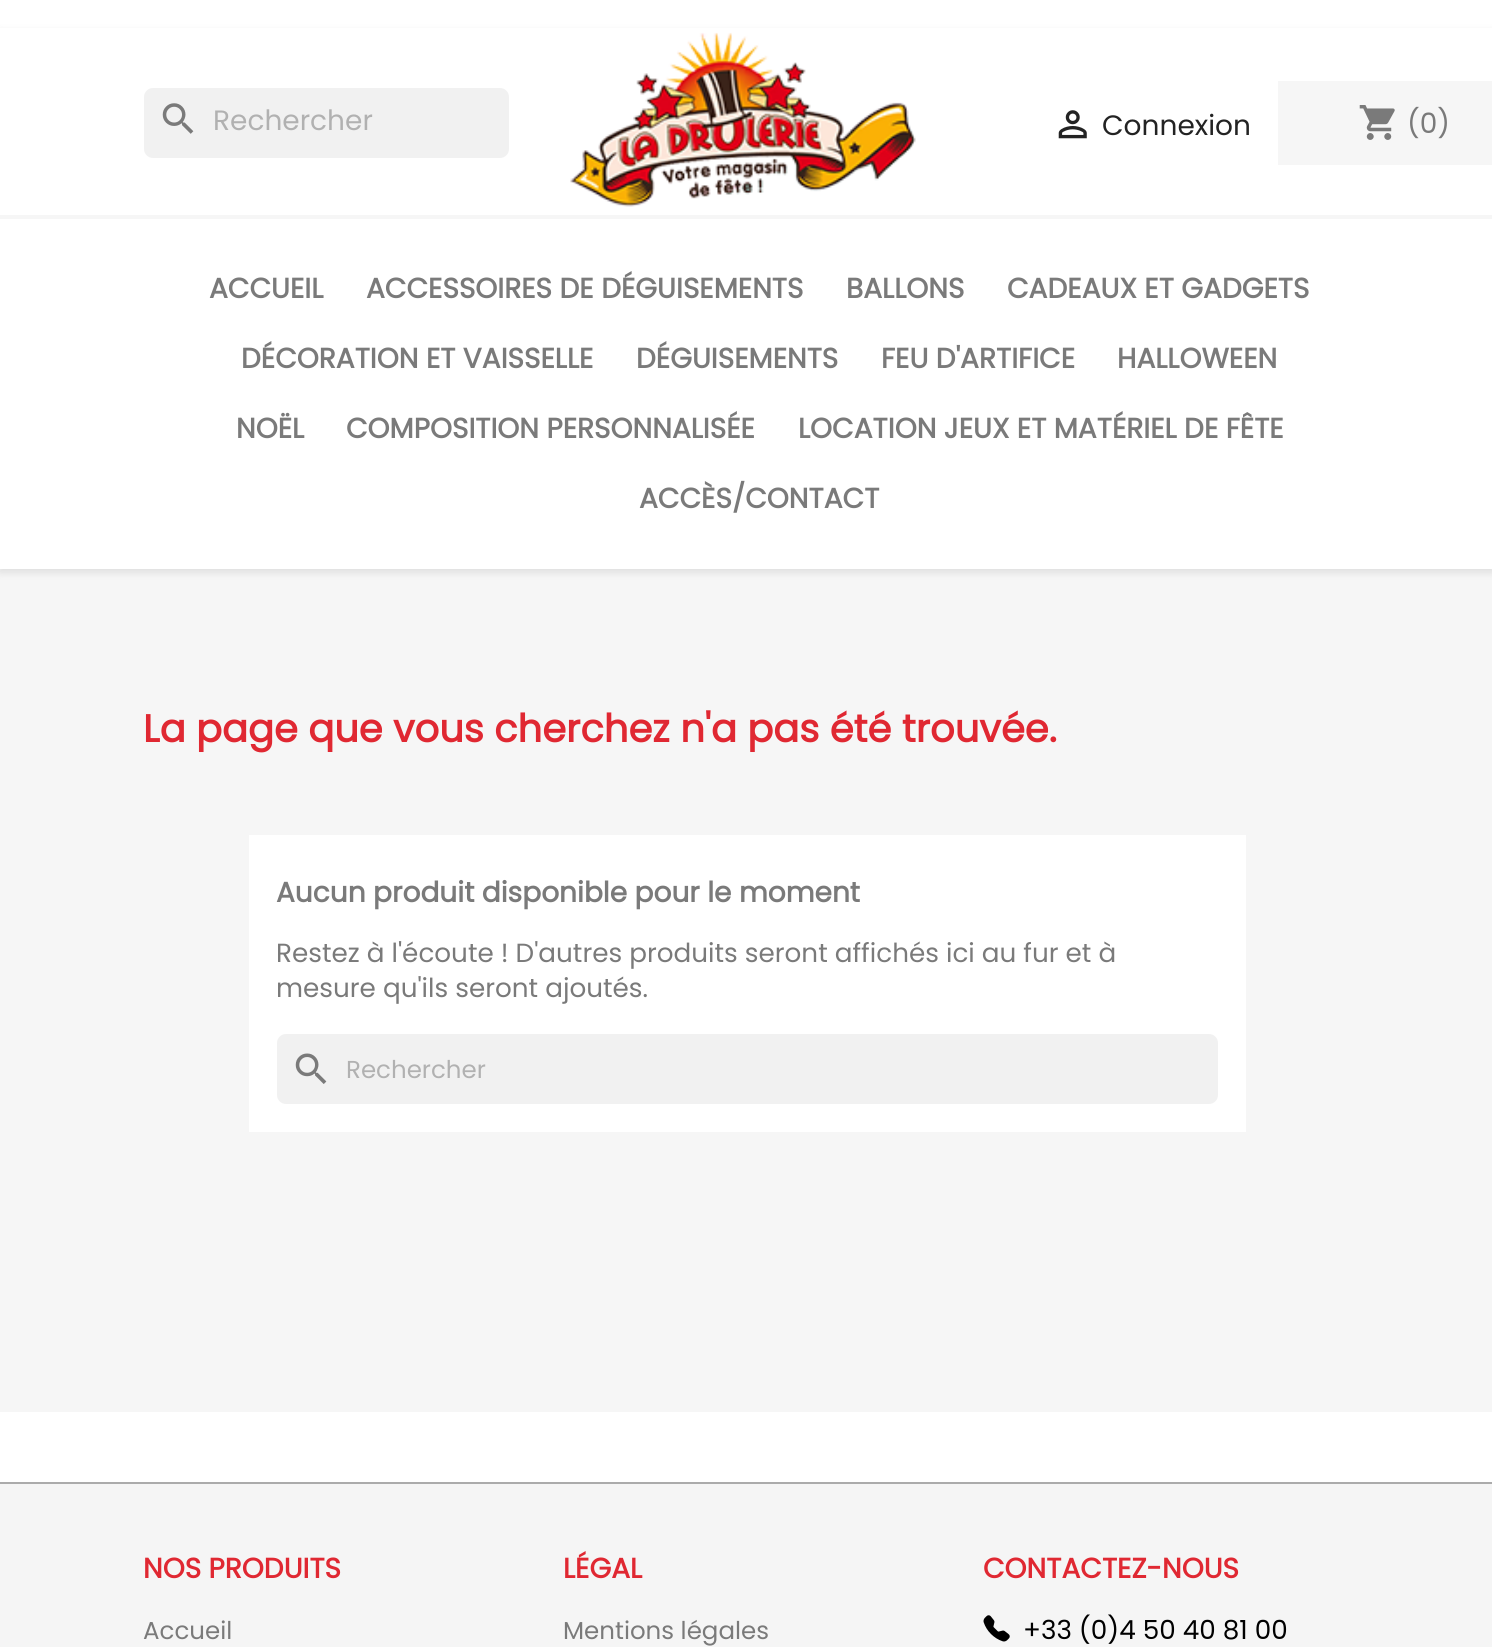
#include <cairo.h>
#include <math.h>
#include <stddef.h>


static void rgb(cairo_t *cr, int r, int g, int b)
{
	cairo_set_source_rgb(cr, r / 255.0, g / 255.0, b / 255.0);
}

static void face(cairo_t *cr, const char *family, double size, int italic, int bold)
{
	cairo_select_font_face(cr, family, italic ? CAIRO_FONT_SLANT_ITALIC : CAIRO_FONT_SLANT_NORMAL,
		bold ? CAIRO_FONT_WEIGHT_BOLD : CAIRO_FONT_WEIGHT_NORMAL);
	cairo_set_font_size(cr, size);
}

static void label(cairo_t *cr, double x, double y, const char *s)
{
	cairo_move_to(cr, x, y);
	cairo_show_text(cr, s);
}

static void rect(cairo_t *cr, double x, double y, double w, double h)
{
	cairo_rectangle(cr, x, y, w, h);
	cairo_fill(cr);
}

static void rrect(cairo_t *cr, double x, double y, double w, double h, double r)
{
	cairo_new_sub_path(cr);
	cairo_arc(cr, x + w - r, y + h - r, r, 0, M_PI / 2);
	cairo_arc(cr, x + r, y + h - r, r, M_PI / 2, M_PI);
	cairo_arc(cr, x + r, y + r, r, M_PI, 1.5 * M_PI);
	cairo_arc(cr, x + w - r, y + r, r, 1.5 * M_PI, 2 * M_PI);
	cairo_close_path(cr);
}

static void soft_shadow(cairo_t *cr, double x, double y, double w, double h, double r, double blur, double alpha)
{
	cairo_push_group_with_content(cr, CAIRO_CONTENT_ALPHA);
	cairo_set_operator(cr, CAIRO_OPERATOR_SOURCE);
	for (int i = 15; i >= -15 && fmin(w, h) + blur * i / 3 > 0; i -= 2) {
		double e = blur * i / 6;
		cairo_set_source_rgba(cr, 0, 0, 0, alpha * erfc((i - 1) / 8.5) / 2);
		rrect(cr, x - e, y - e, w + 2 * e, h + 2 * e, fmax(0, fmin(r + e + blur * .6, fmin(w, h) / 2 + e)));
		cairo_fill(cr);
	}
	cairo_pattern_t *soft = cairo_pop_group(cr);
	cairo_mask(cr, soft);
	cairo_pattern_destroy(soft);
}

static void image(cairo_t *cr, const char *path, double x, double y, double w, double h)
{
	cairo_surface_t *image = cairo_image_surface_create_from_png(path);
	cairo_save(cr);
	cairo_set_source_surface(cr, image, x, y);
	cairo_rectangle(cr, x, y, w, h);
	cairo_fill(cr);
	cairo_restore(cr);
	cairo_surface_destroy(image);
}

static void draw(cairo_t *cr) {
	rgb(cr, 255, 255, 255);
	cairo_paint(cr);
	rgb(cr, 246, 246, 246);
	rect(cr, 0, 569, 1492, 843);
	rgb(cr, 0, 0, 0);
	soft_shadow(cr, 0, 32, 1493, 540, 0, 4.5, 0.11);
	rgb(cr, 255, 255, 255);
	rect(cr, 0, 28, 1492, 541);
	rgb(cr, 246, 246, 246);
	rect(cr, 0, 215, 1492, 4);
	rgb(cr, 241, 241, 241);
	rrect(cr, 144, 88, 365, 70, 9);
	cairo_fill(cr);
	image(cr, "image0.png", 162, 103, 32, 31);
	face(cr, "Poppins", 28, 0, 0);
	rgb(cr, 177, 177, 177);
	label(cr, 213, 130, "Rechercher");
	image(cr, "image1.png", 570, 32, 346, 175);
	image(cr, "image2.png", 1058, 110, 29, 29);
	rgb(cr, 35, 35, 35);
	label(cr, 1102, 135, "Connexion");
	rgb(cr, 246, 246, 246);
	rect(cr, 1278, 81, 214, 84);
	image(cr, "image3.png", 1359, 105, 36, 35);
	rgb(cr, 122, 122, 122);
	label(cr, 1407, 133, "(0)");
	face(cr, "Poppins", 28, 0, 1);
	label(cr, 209, 298, "ACCUEIL");
	label(cr, 366, 298, "ACCESSOIRES DE DÉGUISEMENTS");
	label(cr, 846, 298, "BALLONS");
	label(cr, 1007, 298, "CADEAUX ET GADGETS");
	label(cr, 241, 368, "DÉCORATION ET VAISSELLE");
	label(cr, 636, 368, "DÉGUISEMENTS");
	label(cr, 881, 368, "FEU D'ARTIFICE");
	label(cr, 1117, 368, "HALLOWEEN");
	label(cr, 236, 438, "NOËL");
	label(cr, 346, 438, "COMPOSITION PERSONNALISÉE");
	label(cr, 798, 438, "LOCATION JEUX ET MATÉRIEL DE FÊTE");
	label(cr, 639, 508, "ACCÈS/CONTACT");
	face(cr, "Poppins", 38.5, 0, 1);
	rgb(cr, 224, 40, 50);
	label(cr, 143, 742, "La page que vous cherchez n'a pas été trouvée.");
	rgb(cr, 255, 255, 255);
	rect(cr, 249, 835, 997, 297);
	face(cr, "Poppins", 28, 0, 1);
	rgb(cr, 122, 122, 122);
	label(cr, 276, 902, "Aucun produit disponible pour le moment");
	face(cr, "Poppins", 26.25, 0, 0);
	label(cr, 276, 962, "Restez à l'écoute ! D'autres produits seront affichés ici au fur et à");
	label(cr, 276, 997, "mesure qu'ils seront ajoutés.");
	rgb(cr, 241, 241, 241);
	rrect(cr, 277, 1034, 941, 70, 9);
	cairo_fill(cr);
	image(cr, "image4.png", 295, 1053, 32, 31);
	face(cr, "Poppins", 24.5, 0, 0);
	rgb(cr, 177, 177, 177);
	label(cr, 346, 1078, "Rechercher");
	rgb(cr, 245, 245, 245);
	rect(cr, 0, 1484, 1492, 163);
	rgb(cr, 171, 171, 171);
	rect(cr, 0, 1482, 1492, 2);
	face(cr, "Poppins", 28, 0, 1);
	rgb(cr, 224, 40, 50);
	label(cr, 143, 1578, "NOS PRODUITS");
	face(cr, "Poppins", 24.5, 0, 0);
	rgb(cr, 122, 122, 122);
	label(cr, 143, 1639, "Accueil");
	face(cr, "Poppins", 28, 0, 1);
	rgb(cr, 224, 40, 50);
	label(cr, 563, 1578, "LÉGAL");
	face(cr, "Poppins", 24.5, 0, 0);
	rgb(cr, 122, 122, 122);
	label(cr, 563, 1639, "Mentions légales");
	face(cr, "Poppins", 28, 0, 1);
	rgb(cr, 224, 40, 50);
	label(cr, 983, 1578, "CONTACTEZ-NOUS");
	image(cr, "image5.png", 983, 1615, 27, 27);
	face(cr, "Poppins", 26.25, 0, 0);
	rgb(cr, 0, 0, 0);
	label(cr, 1023, 1639, "+33 (0)4 50 40 81 00");
}

int main(void) {
	cairo_surface_t *surface = cairo_image_surface_create(CAIRO_FORMAT_RGB24, 1492, 1647);
	cairo_t *cr = cairo_create(surface);
	cairo_font_options_t *options = cairo_font_options_create();
	cairo_font_options_set_hint_metrics(options, CAIRO_HINT_METRICS_OFF);
	cairo_font_options_set_hint_style(options, CAIRO_HINT_STYLE_NONE);
	cairo_set_font_options(cr, options);
	cairo_set_miter_limit(cr, 4);
	draw(cr);
	cairo_surface_write_to_png(surface, "render.png");
	cairo_font_options_destroy(options);
	cairo_destroy(cr);
	cairo_surface_destroy(surface);
	return 0;
}
